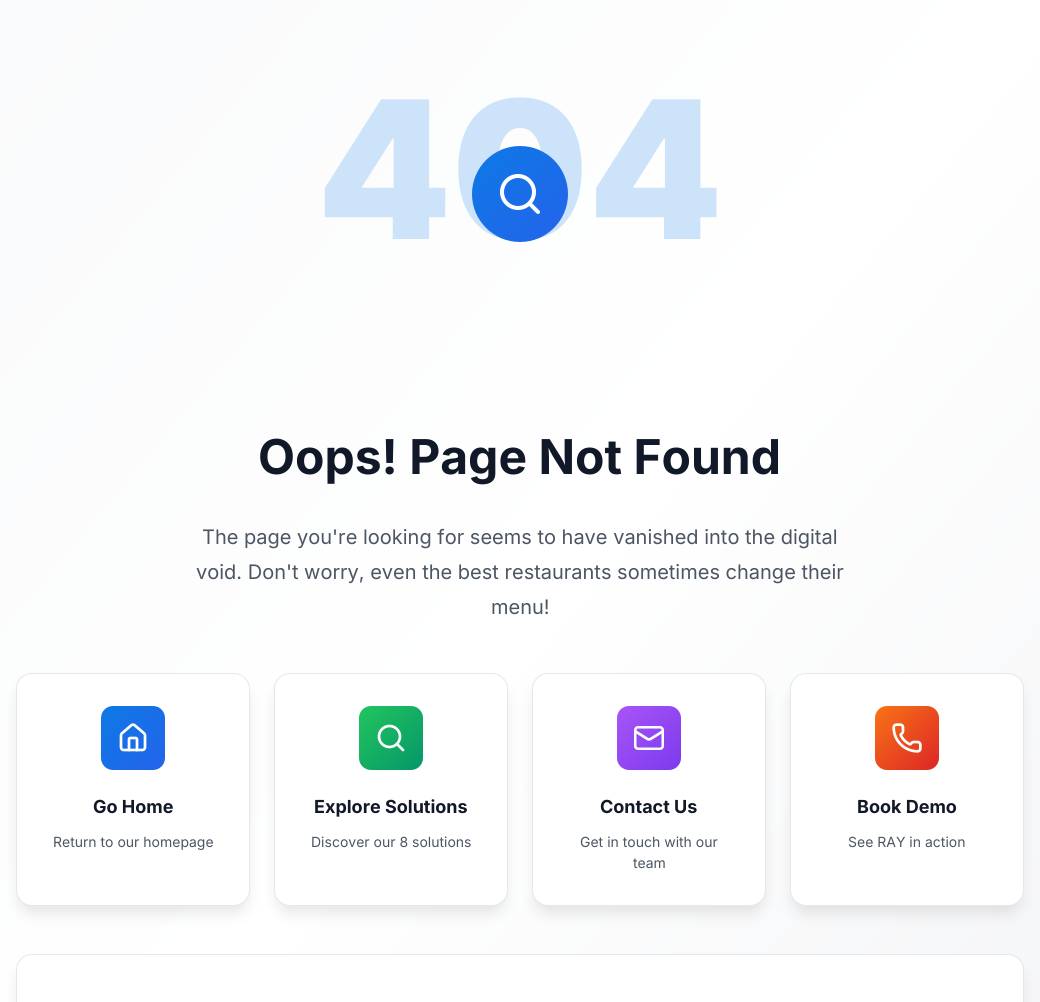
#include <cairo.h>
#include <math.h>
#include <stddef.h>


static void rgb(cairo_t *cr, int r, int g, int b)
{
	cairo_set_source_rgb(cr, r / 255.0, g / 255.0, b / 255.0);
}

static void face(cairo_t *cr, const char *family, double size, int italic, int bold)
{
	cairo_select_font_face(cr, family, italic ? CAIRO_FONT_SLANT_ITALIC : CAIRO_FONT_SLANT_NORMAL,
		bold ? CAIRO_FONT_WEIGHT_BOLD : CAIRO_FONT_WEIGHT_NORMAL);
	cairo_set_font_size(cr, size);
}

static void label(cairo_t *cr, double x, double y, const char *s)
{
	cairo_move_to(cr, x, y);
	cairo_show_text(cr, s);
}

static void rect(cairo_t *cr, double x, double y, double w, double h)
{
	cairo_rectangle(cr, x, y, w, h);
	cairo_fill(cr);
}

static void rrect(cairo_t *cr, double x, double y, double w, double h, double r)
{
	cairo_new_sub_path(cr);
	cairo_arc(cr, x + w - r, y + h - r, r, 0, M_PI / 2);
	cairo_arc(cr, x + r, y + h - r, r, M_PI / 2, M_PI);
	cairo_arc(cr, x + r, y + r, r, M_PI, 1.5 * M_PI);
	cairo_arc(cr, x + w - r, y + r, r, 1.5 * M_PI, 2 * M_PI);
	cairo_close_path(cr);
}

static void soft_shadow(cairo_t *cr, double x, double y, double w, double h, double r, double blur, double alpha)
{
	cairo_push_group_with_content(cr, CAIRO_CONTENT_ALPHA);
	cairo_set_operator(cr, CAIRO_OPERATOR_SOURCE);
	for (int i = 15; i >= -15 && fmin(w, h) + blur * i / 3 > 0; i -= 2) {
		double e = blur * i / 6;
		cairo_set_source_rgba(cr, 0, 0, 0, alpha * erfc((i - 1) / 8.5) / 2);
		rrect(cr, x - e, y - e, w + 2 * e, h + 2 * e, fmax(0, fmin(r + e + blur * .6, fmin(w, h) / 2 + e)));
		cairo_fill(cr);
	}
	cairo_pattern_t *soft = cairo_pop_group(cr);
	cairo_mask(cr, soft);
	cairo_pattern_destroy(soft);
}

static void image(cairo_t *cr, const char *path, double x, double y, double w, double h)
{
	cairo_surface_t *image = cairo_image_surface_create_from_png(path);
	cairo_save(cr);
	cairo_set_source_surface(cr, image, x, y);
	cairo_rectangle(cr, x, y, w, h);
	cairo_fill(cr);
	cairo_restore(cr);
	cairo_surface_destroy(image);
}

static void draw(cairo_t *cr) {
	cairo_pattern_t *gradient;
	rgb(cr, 255, 255, 255);
	cairo_paint(cr);
	gradient = cairo_pattern_create_linear(-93, 112, 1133, 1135);
	cairo_pattern_add_color_stop_rgba(gradient, 0, 0.976, 0.98, 0.984, 1);
	cairo_pattern_add_color_stop_rgba(gradient, 0.5, 1, 1, 1, 1);
	cairo_pattern_add_color_stop_rgba(gradient, 1, 0.953, 0.957, 0.965, 1);
	cairo_set_source(cr, gradient);
	cairo_pattern_destroy(gradient);
	rect(cr, 0, 0, 1040, 1002);
	face(cr, "Inter Black", 192, 0, 0);
	rgb(cr, 205, 227, 249);
	label(cr, 317, 239, "404");
	gradient = cairo_pattern_create_linear(472, 146, 568, 242);
	cairo_pattern_add_color_stop_rgba(gradient, 0, 0.051, 0.475, 0.898, 1);
	cairo_pattern_add_color_stop_rgba(gradient, 1, 0.145, 0.388, 0.922, 1);
	cairo_set_source(cr, gradient);
	cairo_pattern_destroy(gradient);
	cairo_new_path(cr);
	cairo_arc(cr, 520, 194, 48, 0, 2 * M_PI);
	cairo_fill(cr);
	cairo_new_path(cr);
	cairo_move_to(cr, 538, 212);
	cairo_line_to(cr, 529.5, 203.5);
	rgb(cr, 255, 255, 255);
	cairo_set_line_width(cr, 4);
	cairo_set_line_cap(cr, CAIRO_LINE_CAP_ROUND);
	cairo_set_line_join(cr, CAIRO_LINE_JOIN_ROUND);
	cairo_stroke(cr);
	cairo_arc(cr, 518, 192, 16, 0, 2 * M_PI);
	cairo_set_line_cap(cr, CAIRO_LINE_CAP_BUTT);
	cairo_set_line_join(cr, CAIRO_LINE_JOIN_MITER);
	cairo_stroke(cr);
	face(cr, "Inter", 48, 0, 1);
	rgb(cr, 17, 24, 39);
	label(cr, 258, 474, "Oops! Page Not Found");
	face(cr, "Inter", 20, 0, 0);
	rgb(cr, 75, 85, 99);
	label(cr, 202, 544, "The page you're looking for seems to have vanished into the digital");
	label(cr, 196, 579, "void. Don't worry, even the best restaurants sometimes change their");
	label(cr, 491, 614, "menu!");
	rgb(cr, 0, 0, 0);
	soft_shadow(cr, 19, 686, 228, 227, 13, 7.5, 0.1);
	rgb(cr, 255, 255, 255);
	rrect(cr, 16.5, 673.5, 233, 232, 15.5);
	cairo_fill_preserve(cr);
	rgb(cr, 229, 231, 235);
	cairo_set_line_width(cr, 1);
	cairo_stroke(cr);
	gradient = cairo_pattern_create_linear(101, 706, 165, 770);
	cairo_pattern_add_color_stop_rgba(gradient, 0, 0.051, 0.475, 0.898, 1);
	cairo_pattern_add_color_stop_rgba(gradient, 1, 0.145, 0.388, 0.922, 1);
	cairo_set_source(cr, gradient);
	cairo_pattern_destroy(gradient);
	rrect(cr, 101, 706, 64, 64, 12);
	cairo_fill(cr);
	image(cr, "image0.png", 119, 723, 28, 29);
	face(cr, "Inter", 18, 0, 1);
	rgb(cr, 17, 24, 39);
	label(cr, 93, 813, "Go Home");
	face(cr, "Inter", 14, 0, 0);
	rgb(cr, 75, 85, 99);
	label(cr, 53, 847, "Return to our homepage");
	rgb(cr, 0, 0, 0);
	soft_shadow(cr, 277, 686, 228, 227, 13, 7.5, 0.1);
	rgb(cr, 255, 255, 255);
	rrect(cr, 274.5, 673.5, 233, 232, 15.5);
	cairo_fill_preserve(cr);
	rgb(cr, 229, 231, 235);
	cairo_stroke(cr);
	gradient = cairo_pattern_create_linear(359, 706, 423, 770);
	cairo_pattern_add_color_stop_rgba(gradient, 0, 0.133, 0.773, 0.369, 1);
	cairo_pattern_add_color_stop_rgba(gradient, 1, 0.02, 0.588, 0.412, 1);
	cairo_set_source(cr, gradient);
	cairo_pattern_destroy(gradient);
	rrect(cr, 359, 706, 64, 64, 12);
	cairo_fill(cr);
	cairo_new_path(cr);
	cairo_move_to(cr, 403, 750);
	cairo_line_to(cr, 397, 744);
	rgb(cr, 255, 255, 255);
	cairo_set_line_width(cr, 2.7);
	cairo_set_line_cap(cr, CAIRO_LINE_CAP_ROUND);
	cairo_set_line_join(cr, CAIRO_LINE_JOIN_ROUND);
	cairo_stroke(cr);
	cairo_arc(cr, 389.5, 736.5, 10.5, 0, 2 * M_PI);
	cairo_set_line_cap(cr, CAIRO_LINE_CAP_BUTT);
	cairo_set_line_join(cr, CAIRO_LINE_JOIN_MITER);
	cairo_stroke(cr);
	face(cr, "Inter", 18, 0, 1);
	rgb(cr, 17, 24, 39);
	label(cr, 314, 813, "Explore Solutions");
	face(cr, "Inter", 14, 0, 0);
	rgb(cr, 75, 85, 99);
	label(cr, 311, 847, "Discover our 8 solutions");
	rgb(cr, 0, 0, 0);
	soft_shadow(cr, 535, 686, 228, 227, 13, 7.5, 0.1);
	rgb(cr, 255, 255, 255);
	rrect(cr, 532.5, 673.5, 233, 232, 15.5);
	cairo_fill_preserve(cr);
	rgb(cr, 229, 231, 235);
	cairo_set_line_width(cr, 1);
	cairo_stroke(cr);
	gradient = cairo_pattern_create_linear(617, 706, 681, 770);
	cairo_pattern_add_color_stop_rgba(gradient, 0, 0.659, 0.333, 0.969, 1);
	cairo_pattern_add_color_stop_rgba(gradient, 1, 0.486, 0.227, 0.929, 1);
	cairo_set_source(cr, gradient);
	cairo_pattern_destroy(gradient);
	rrect(cr, 617, 706, 64, 64, 12);
	cairo_fill(cr);
	cairo_new_path(cr);
	cairo_move_to(cr, 662.5, 731.5);
	cairo_line_to(cr, 650.5, 739);
	cairo_curve_to(cr, 649.5, 739.5, 648.5, 739.5, 647.5, 739);
	cairo_line_to(cr, 635.5, 731.5);
	rgb(cr, 255, 255, 255);
	cairo_set_line_width(cr, 2.7);
	cairo_set_line_cap(cr, CAIRO_LINE_CAP_ROUND);
	cairo_set_line_join(cr, CAIRO_LINE_JOIN_ROUND);
	cairo_stroke(cr);
	rrect(cr, 635.25, 727.25, 27.5, 21.5, 2.75);
	cairo_set_line_width(cr, 2.5);
	cairo_set_line_cap(cr, CAIRO_LINE_CAP_BUTT);
	cairo_set_line_join(cr, CAIRO_LINE_JOIN_MITER);
	cairo_stroke(cr);
	face(cr, "Inter", 18, 0, 1);
	rgb(cr, 17, 24, 39);
	label(cr, 600, 813, "Contact Us");
	face(cr, "Inter", 14, 0, 0);
	rgb(cr, 75, 85, 99);
	label(cr, 580, 847, "Get in touch with our");
	label(cr, 633, 868, "team");
	rgb(cr, 0, 0, 0);
	soft_shadow(cr, 793, 686, 228, 227, 13, 7.5, 0.1);
	rgb(cr, 255, 255, 255);
	rrect(cr, 790.5, 673.5, 233, 232, 15.5);
	cairo_fill_preserve(cr);
	rgb(cr, 229, 231, 235);
	cairo_set_line_width(cr, 1);
	cairo_stroke(cr);
	gradient = cairo_pattern_create_linear(875, 706, 939, 770);
	cairo_pattern_add_color_stop_rgba(gradient, 0, 0.976, 0.451, 0.086, 1);
	cairo_pattern_add_color_stop_rgba(gradient, 1, 0.863, 0.149, 0.149, 1);
	cairo_set_source(cr, gradient);
	cairo_pattern_destroy(gradient);
	rrect(cr, 875, 706, 64, 64, 12);
	cairo_fill(cr);
	image(cr, "image1.png", 892, 723, 30, 30);
	face(cr, "Inter", 18, 0, 1);
	rgb(cr, 17, 24, 39);
	label(cr, 857, 813, "Book Demo");
	face(cr, "Inter", 14, 0, 0);
	rgb(cr, 75, 85, 99);
	label(cr, 848, 847, "See RAY in action");
	rgb(cr, 0, 0, 0);
	soft_shadow(cr, 19, 967, 1002, 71, 13, 7.5, 0.1);
	rgb(cr, 255, 255, 255);
	rrect(cr, 16.5, 954.5, 1007, 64, 15.5);
	cairo_fill_preserve(cr);
	rgb(cr, 229, 231, 235);
	cairo_stroke(cr);
}

int main(void) {
	cairo_surface_t *surface = cairo_image_surface_create(CAIRO_FORMAT_RGB24, 1040, 1002);
	cairo_t *cr = cairo_create(surface);
	cairo_font_options_t *options = cairo_font_options_create();
	cairo_font_options_set_hint_metrics(options, CAIRO_HINT_METRICS_OFF);
	cairo_font_options_set_hint_style(options, CAIRO_HINT_STYLE_NONE);
	cairo_set_font_options(cr, options);
	cairo_set_miter_limit(cr, 4);
	draw(cr);
	cairo_surface_write_to_png(surface, "render.png");
	cairo_font_options_destroy(options);
	cairo_destroy(cr);
	cairo_surface_destroy(surface);
	return 0;
}
